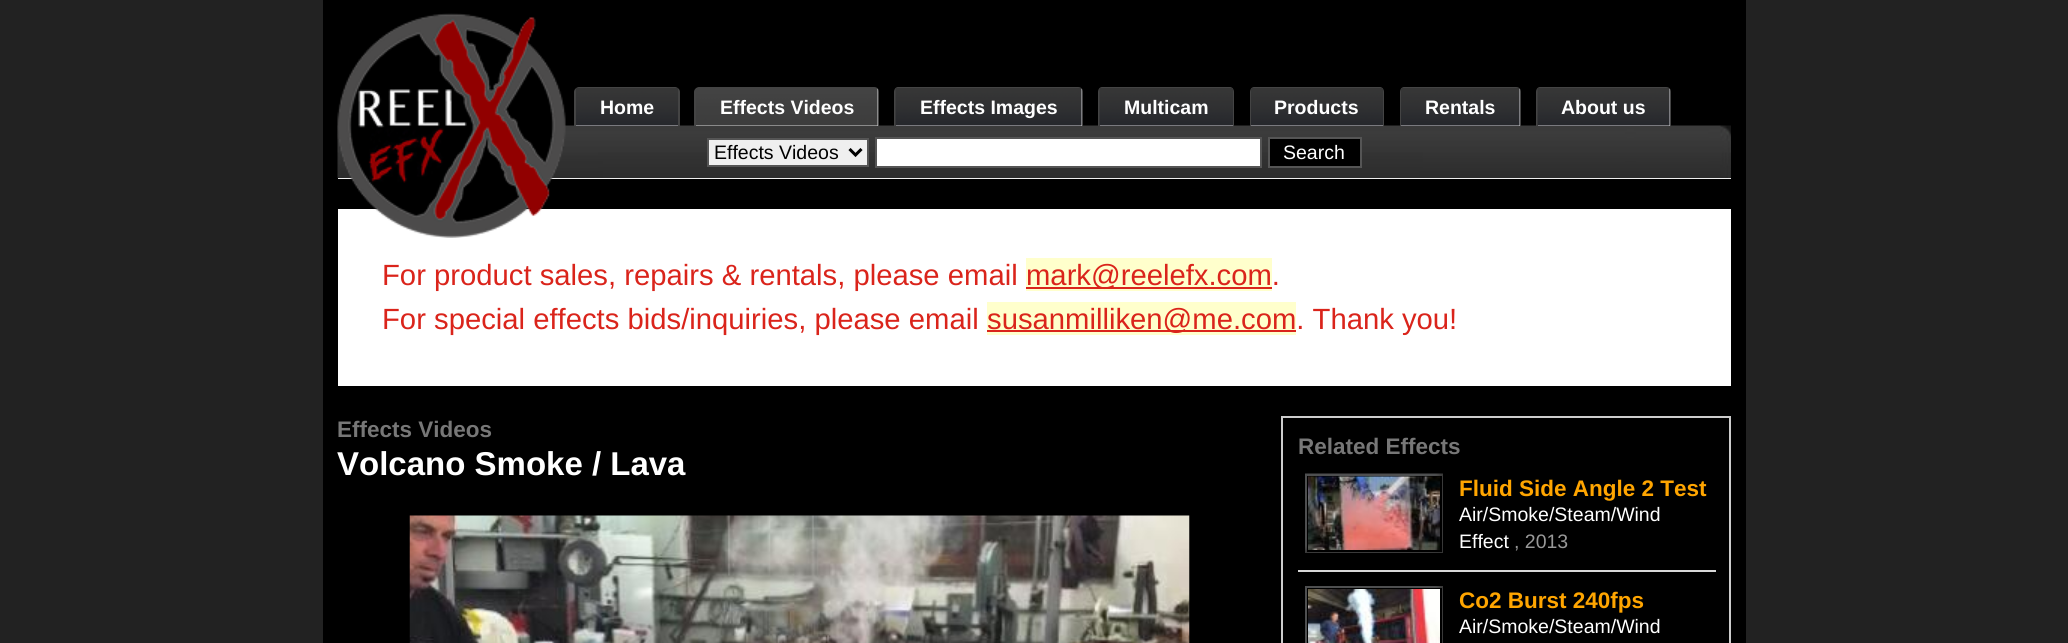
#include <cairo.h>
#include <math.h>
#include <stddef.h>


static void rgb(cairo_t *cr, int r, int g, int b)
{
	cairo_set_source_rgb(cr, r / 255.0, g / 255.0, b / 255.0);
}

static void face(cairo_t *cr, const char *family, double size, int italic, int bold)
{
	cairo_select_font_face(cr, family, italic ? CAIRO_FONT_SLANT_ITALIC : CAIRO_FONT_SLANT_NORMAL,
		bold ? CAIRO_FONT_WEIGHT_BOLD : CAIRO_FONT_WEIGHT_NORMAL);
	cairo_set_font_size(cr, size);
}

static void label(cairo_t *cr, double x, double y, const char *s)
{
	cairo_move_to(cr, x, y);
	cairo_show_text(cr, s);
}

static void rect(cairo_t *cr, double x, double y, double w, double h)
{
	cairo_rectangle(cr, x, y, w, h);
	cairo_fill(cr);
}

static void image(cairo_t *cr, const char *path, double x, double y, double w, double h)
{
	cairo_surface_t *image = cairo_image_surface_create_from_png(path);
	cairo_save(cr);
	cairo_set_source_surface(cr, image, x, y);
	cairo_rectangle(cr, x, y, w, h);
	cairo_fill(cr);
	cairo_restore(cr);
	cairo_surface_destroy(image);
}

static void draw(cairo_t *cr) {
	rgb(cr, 34, 34, 34);
	cairo_paint(cr);
	rgb(cr, 0, 0, 0);
	rect(cr, 323, 0, 1423, 643);
	rgb(cr, 238, 238, 238);
	rect(cr, 338, 178, 1393, 1);
	image(cr, "image8.png", 337, 125, 1394, 53);
	rgb(cr, 255, 255, 255);
	rect(cr, 338, 209, 1393, 177);
	image(cr, "image0.png", 337, 13, 229, 225);
	rgb(cr, 68, 68, 68);
	cairo_set_fill_rule(cr, CAIRO_FILL_RULE_EVEN_ODD);
	cairo_new_path(cr);
	cairo_move_to(cr, 579, 87);
	cairo_line_to(cr, 675, 87);
	cairo_curve_to(cr, 677, 87, 680, 89, 680, 92);
	cairo_line_to(cr, 680, 126);
	cairo_line_to(cr, 574, 126);
	cairo_line_to(cr, 574, 92);
	cairo_curve_to(cr, 574, 89, 577, 87, 579, 87);
	cairo_close_path(cr);
	cairo_move_to(cr, 579, 88);
	cairo_line_to(cr, 675, 88);
	cairo_curve_to(cr, 677, 88, 678, 90, 678, 92);
	cairo_line_to(cr, 678, 126);
	cairo_line_to(cr, 576, 126);
	cairo_line_to(cr, 576, 92);
	cairo_curve_to(cr, 576, 90, 577, 88, 579, 88);
	cairo_close_path(cr);
	cairo_fill(cr);
	rgb(cr, 204, 205, 210);
	rect(cr, 576, 125, 102, 1);
	image(cr, "image1.png", 576, 88, 102, 38);
	face(cr, "Liberation Sans", 19.5, 0, 1);
	rgb(cr, 255, 255, 255);
	label(cr, 600, 114, "Home");
	rgb(cr, 68, 68, 68);
	cairo_new_path(cr);
	cairo_move_to(cr, 699, 87);
	cairo_line_to(cr, 874, 87);
	cairo_curve_to(cr, 877, 87, 879, 89, 879, 92);
	cairo_line_to(cr, 879, 126);
	cairo_line_to(cr, 694, 126);
	cairo_line_to(cr, 694, 92);
	cairo_curve_to(cr, 694, 89, 697, 87, 699, 87);
	cairo_close_path(cr);
	cairo_move_to(cr, 699, 88);
	cairo_line_to(cr, 874, 88);
	cairo_curve_to(cr, 876, 88, 878, 90, 878, 92);
	cairo_line_to(cr, 878, 126);
	cairo_line_to(cr, 696, 126);
	cairo_line_to(cr, 696, 92);
	cairo_curve_to(cr, 696, 90, 697, 88, 699, 88);
	cairo_close_path(cr);
	cairo_fill(cr);
	rgb(cr, 214, 214, 214);
	rect(cr, 696, 89, 182, 37);
	image(cr, "image2.png", 696, 88, 182, 38);
	rgb(cr, 255, 255, 255);
	label(cr, 720, 114, "Effects Videos");
	rgb(cr, 68, 68, 68);
	cairo_new_path(cr);
	cairo_move_to(cr, 898, 87);
	cairo_line_to(cr, 1078, 87);
	cairo_curve_to(cr, 1081, 87, 1083, 89, 1083, 92);
	cairo_line_to(cr, 1083, 126);
	cairo_line_to(cr, 894, 126);
	cairo_line_to(cr, 894, 92);
	cairo_curve_to(cr, 894, 89, 896, 87, 898, 87);
	cairo_close_path(cr);
	cairo_move_to(cr, 898, 88);
	cairo_line_to(cr, 1078, 88);
	cairo_curve_to(cr, 1080, 88, 1082, 90, 1082, 92);
	cairo_line_to(cr, 1082, 126);
	cairo_line_to(cr, 896, 126);
	cairo_line_to(cr, 896, 92);
	cairo_curve_to(cr, 896, 90, 897, 88, 898, 88);
	cairo_close_path(cr);
	cairo_fill(cr);
	rgb(cr, 204, 205, 210);
	rect(cr, 896, 89, 186, 37);
	image(cr, "image3.png", 895, 88, 187, 38);
	rgb(cr, 255, 255, 255);
	label(cr, 920, 114, "Effects Images");
	rgb(cr, 68, 68, 68);
	cairo_new_path(cr);
	cairo_move_to(cr, 1102, 87);
	cairo_line_to(cr, 1230, 87);
	cairo_curve_to(cr, 1232, 87, 1234, 89, 1234, 92);
	cairo_line_to(cr, 1234, 126);
	cairo_line_to(cr, 1098, 126);
	cairo_line_to(cr, 1098, 92);
	cairo_curve_to(cr, 1098, 89, 1100, 87, 1102, 87);
	cairo_close_path(cr);
	cairo_move_to(cr, 1102, 88);
	cairo_line_to(cr, 1230, 88);
	cairo_curve_to(cr, 1232, 88, 1233, 90, 1233, 92);
	cairo_line_to(cr, 1233, 126);
	cairo_line_to(cr, 1100, 126);
	cairo_line_to(cr, 1100, 92);
	cairo_curve_to(cr, 1100, 90, 1101, 88, 1102, 88);
	cairo_close_path(cr);
	cairo_fill(cr);
	rgb(cr, 204, 205, 210);
	rect(cr, 1100, 125, 133, 1);
	image(cr, "image4.png", 1099, 88, 134, 38);
	rgb(cr, 255, 255, 255);
	label(cr, 1124, 114, "Multicam");
	rgb(cr, 68, 68, 68);
	cairo_new_path(cr);
	cairo_move_to(cr, 1254, 87);
	cairo_line_to(cr, 1380, 87);
	cairo_curve_to(cr, 1382, 87, 1384, 89, 1384, 92);
	cairo_line_to(cr, 1384, 126);
	cairo_line_to(cr, 1250, 126);
	cairo_line_to(cr, 1250, 92);
	cairo_curve_to(cr, 1250, 89, 1252, 87, 1254, 87);
	cairo_close_path(cr);
	cairo_move_to(cr, 1254, 88);
	cairo_line_to(cr, 1380, 88);
	cairo_curve_to(cr, 1382, 88, 1383, 90, 1383, 92);
	cairo_line_to(cr, 1383, 126);
	cairo_line_to(cr, 1251, 126);
	cairo_line_to(cr, 1251, 92);
	cairo_curve_to(cr, 1251, 90, 1252, 88, 1254, 88);
	cairo_close_path(cr);
	cairo_fill(cr);
	rgb(cr, 204, 205, 210);
	rect(cr, 1251, 125, 132, 1);
	image(cr, "image5.png", 1251, 88, 132, 38);
	rgb(cr, 255, 255, 255);
	label(cr, 1274, 114, "Products");
	rgb(cr, 68, 68, 68);
	cairo_new_path(cr);
	cairo_move_to(cr, 1404, 87);
	cairo_line_to(cr, 1516, 87);
	cairo_curve_to(cr, 1519, 87, 1521, 89, 1521, 92);
	cairo_line_to(cr, 1521, 126);
	cairo_line_to(cr, 1400, 126);
	cairo_line_to(cr, 1400, 92);
	cairo_curve_to(cr, 1400, 89, 1402, 87, 1404, 87);
	cairo_close_path(cr);
	cairo_move_to(cr, 1404, 88);
	cairo_line_to(cr, 1516, 88);
	cairo_curve_to(cr, 1518, 88, 1520, 90, 1520, 92);
	cairo_line_to(cr, 1520, 126);
	cairo_line_to(cr, 1401, 126);
	cairo_line_to(cr, 1401, 92);
	cairo_curve_to(cr, 1401, 90, 1402, 88, 1404, 88);
	cairo_close_path(cr);
	cairo_fill(cr);
	rgb(cr, 204, 205, 210);
	rect(cr, 1401, 89, 119, 37);
	image(cr, "image6.png", 1401, 88, 119, 38);
	rgb(cr, 255, 255, 255);
	label(cr, 1425, 114, "Rentals");
	rgb(cr, 68, 68, 68);
	cairo_new_path(cr);
	cairo_move_to(cr, 1540, 87);
	cairo_line_to(cr, 1666, 87);
	cairo_curve_to(cr, 1669, 87, 1671, 89, 1671, 92);
	cairo_line_to(cr, 1671, 126);
	cairo_line_to(cr, 1536, 126);
	cairo_line_to(cr, 1536, 92);
	cairo_curve_to(cr, 1536, 89, 1538, 87, 1540, 87);
	cairo_close_path(cr);
	cairo_move_to(cr, 1540, 88);
	cairo_line_to(cr, 1666, 88);
	cairo_curve_to(cr, 1668, 88, 1670, 90, 1670, 92);
	cairo_line_to(cr, 1670, 126);
	cairo_line_to(cr, 1538, 126);
	cairo_line_to(cr, 1538, 92);
	cairo_curve_to(cr, 1538, 90, 1539, 88, 1540, 88);
	cairo_close_path(cr);
	cairo_fill(cr);
	rgb(cr, 204, 205, 210);
	rect(cr, 1538, 89, 132, 37);
	image(cr, "image7.png", 1537, 88, 133, 38);
	rgb(cr, 255, 255, 255);
	label(cr, 1561, 114, "About us");
	rgb(cr, 239, 239, 239);
	cairo_rectangle(cr, 708, 139, 160, 27);
	cairo_fill_preserve(cr);
	rgb(cr, 85, 85, 85);
	cairo_stroke(cr);
	cairo_new_path(cr);
	cairo_move_to(cr, 849.5, 149);
	cairo_line_to(cr, 855.5, 155);
	cairo_line_to(cr, 861.5, 149);
	rgb(cr, 0, 0, 0);
	cairo_set_line_width(cr, 3);
	cairo_stroke(cr);
	face(cr, "Liberation Sans", 19.5, 0, 0);
	label(cr, 714, 159, "Effects Videos");
	rgb(cr, 255, 255, 255);
	cairo_rectangle(cr, 876, 138, 385, 29);
	cairo_fill_preserve(cr);
	rgb(cr, 85, 85, 85);
	cairo_set_line_width(cr, 2);
	cairo_stroke(cr);
	rgb(cr, 0, 0, 0);
	cairo_rectangle(cr, 1269, 138, 92, 29);
	cairo_fill_preserve(cr);
	rgb(cr, 85, 85, 85);
	cairo_stroke(cr);
	rgb(cr, 255, 255, 255);
	label(cr, 1283, 159, "Search");
	face(cr, "Liberation Sans", 29.25, 0, 0);
	rgb(cr, 218, 36, 27);
	label(cr, 382, 285, "For product sales, repairs & rentals, please email");
	rgb(cr, 255, 255, 204);
	rect(cr, 1026, 258, 246, 33);
	rgb(cr, 218, 36, 27);
	rect(cr, 1026, 287, 246, 2);
	label(cr, 1026, 285, "mark@reelefx.com.");
	label(cr, 382, 329, "For special effects bids/inquiries, please email");
	rgb(cr, 255, 255, 204);
	rect(cr, 987, 302, 309, 33);
	rgb(cr, 218, 36, 27);
	rect(cr, 987, 330, 309, 2);
	label(cr, 987, 329, "susanmilliken@me.com. Thank you!");
	face(cr, "Liberation Sans", 22.5, 0, 1);
	rgb(cr, 119, 119, 119);
	label(cr, 337, 437, "Effects Videos");
	face(cr, "Liberation Sans", 33, 0, 1);
	rgb(cr, 255, 255, 255);
	label(cr, 337, 475, "Volcano Smoke / Lava");
	image(cr, "image9.png", 409, 515, 781, 128);
	cairo_rectangle(cr, 1282, 417, 448, 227);
	rgb(cr, 204, 204, 204);
	cairo_stroke(cr);
	face(cr, "Liberation Sans", 22.5, 0, 1);
	rgb(cr, 119, 119, 119);
	label(cr, 1298, 454, "Related Effects");
	image(cr, "image10.png", 1305, 473, 138, 80);
	cairo_rectangle(cr, 1308, 477, 133, 74);
	rgb(cr, 0, 0, 0);
	cairo_stroke(cr);
	image(cr, "image11.png", 1308, 476, 132, 74);
	rgb(cr, 216, 216, 216);
	rect(cr, 1298, 570, 418, 2);
	rgb(cr, 255, 165, 0);
	label(cr, 1459, 496, "Fluid Side Angle 2 Test");
	face(cr, "Liberation Sans", 19.5, 0, 0);
	rgb(cr, 255, 255, 255);
	label(cr, 1459, 521, "Air/Smoke/Steam/Wind");
	label(cr, 1459, 548, "Effect");
	rgb(cr, 153, 153, 153);
	label(cr, 1514, 548, ", 2013");
	image(cr, "image12.png", 1305, 586, 138, 57);
	cairo_rectangle(cr, 1308, 589, 133, 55);
	rgb(cr, 0, 0, 0);
	cairo_stroke(cr);
	image(cr, "image13.png", 1308, 589, 132, 54);
	face(cr, "Liberation Sans", 22.5, 0, 1);
	rgb(cr, 255, 165, 0);
	label(cr, 1459, 608, "Co2 Burst 240fps");
	face(cr, "Liberation Sans", 19.5, 0, 0);
	rgb(cr, 255, 255, 255);
	label(cr, 1459, 633, "Air/Smoke/Steam/Wind");
}

int main(void) {
	cairo_surface_t *surface = cairo_image_surface_create(CAIRO_FORMAT_RGB24, 2068, 643);
	cairo_t *cr = cairo_create(surface);
	cairo_font_options_t *options = cairo_font_options_create();
	cairo_font_options_set_hint_metrics(options, CAIRO_HINT_METRICS_OFF);
	cairo_font_options_set_hint_style(options, CAIRO_HINT_STYLE_NONE);
	cairo_set_font_options(cr, options);
	cairo_set_miter_limit(cr, 4);
	draw(cr);
	cairo_surface_write_to_png(surface, "render.png");
	cairo_font_options_destroy(options);
	cairo_destroy(cr);
	cairo_surface_destroy(surface);
	return 0;
}
